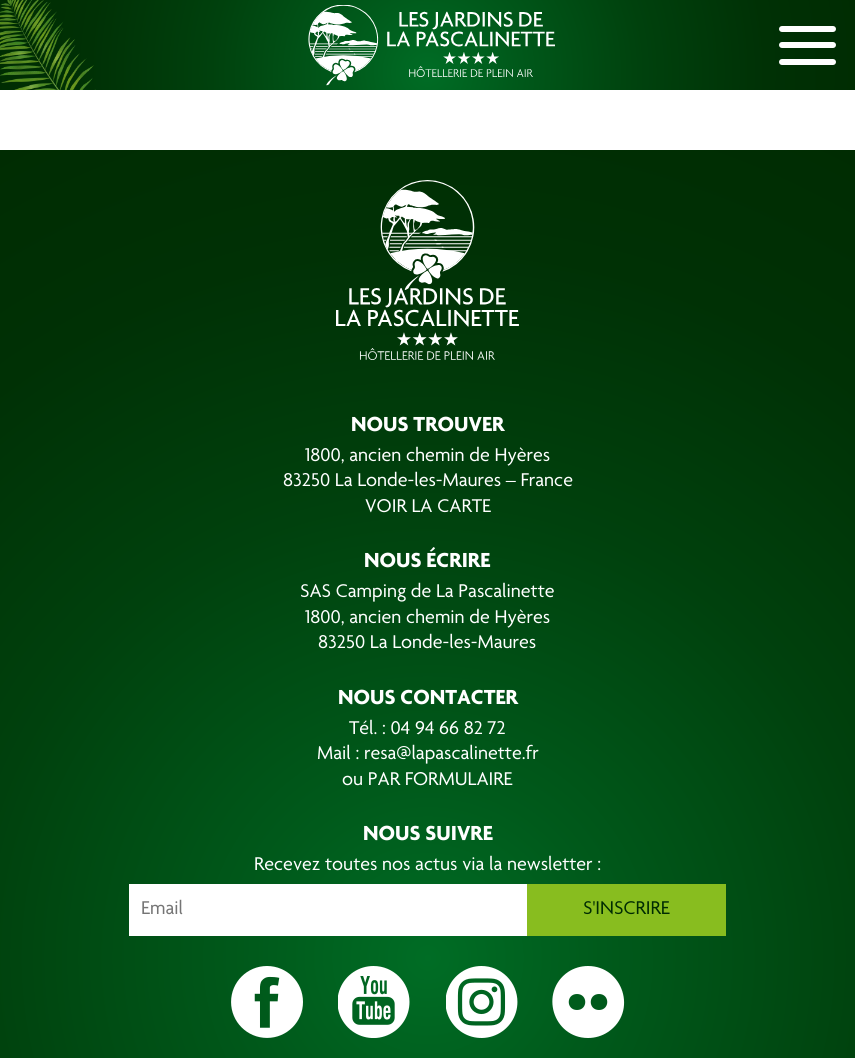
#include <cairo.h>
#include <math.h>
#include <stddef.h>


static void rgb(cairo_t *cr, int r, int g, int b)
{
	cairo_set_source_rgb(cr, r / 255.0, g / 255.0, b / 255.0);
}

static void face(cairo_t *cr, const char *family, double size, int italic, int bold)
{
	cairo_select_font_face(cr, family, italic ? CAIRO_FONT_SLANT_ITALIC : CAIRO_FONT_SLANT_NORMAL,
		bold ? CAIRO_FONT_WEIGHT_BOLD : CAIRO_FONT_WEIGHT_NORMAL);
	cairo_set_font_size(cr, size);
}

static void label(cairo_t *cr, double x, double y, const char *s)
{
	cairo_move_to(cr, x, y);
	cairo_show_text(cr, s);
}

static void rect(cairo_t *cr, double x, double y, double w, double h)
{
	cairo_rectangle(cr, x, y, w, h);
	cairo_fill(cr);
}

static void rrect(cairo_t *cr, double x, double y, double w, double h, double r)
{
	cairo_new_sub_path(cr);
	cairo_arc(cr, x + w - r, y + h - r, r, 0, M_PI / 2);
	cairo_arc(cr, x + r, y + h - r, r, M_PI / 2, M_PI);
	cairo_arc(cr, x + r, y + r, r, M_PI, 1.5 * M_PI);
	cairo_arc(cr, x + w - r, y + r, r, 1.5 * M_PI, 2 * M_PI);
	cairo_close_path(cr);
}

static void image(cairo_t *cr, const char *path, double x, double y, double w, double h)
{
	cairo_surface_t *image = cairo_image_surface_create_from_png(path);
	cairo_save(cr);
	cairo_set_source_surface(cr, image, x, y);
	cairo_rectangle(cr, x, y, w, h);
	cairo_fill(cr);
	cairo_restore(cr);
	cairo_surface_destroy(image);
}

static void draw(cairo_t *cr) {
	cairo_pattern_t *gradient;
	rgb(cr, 255, 255, 255);
	cairo_paint(cr);
	gradient = cairo_pattern_create_radial(428, 72, 0, 428, 72, 434);
	cairo_pattern_add_color_stop_rgba(gradient, 0, 0, 0.427, 0.145, 1);
	cairo_pattern_add_color_stop_rgba(gradient, 0.19, 0, 0.353, 0.106, 1);
	cairo_pattern_add_color_stop_rgba(gradient, 0.5, 0, 0.255, 0.051, 1);
	cairo_pattern_add_color_stop_rgba(gradient, 0.78, 0, 0.192, 0.02, 1);
	cairo_pattern_add_color_stop_rgba(gradient, 1, 0, 0.173, 0.008, 1);
	cairo_set_source(cr, gradient);
	cairo_pattern_destroy(gradient);
	rect(cr, 0, 0, 855, 90);
	image(cr, "image0.png", 0, 0, 96, 90);
	image(cr, "image1.png", 308, 5, 247, 81);
	rgb(cr, 255, 255, 255);
	rrect(cr, 779, 26, 57, 6, 3);
	cairo_fill(cr);
	rrect(cr, 779, 42, 57, 6, 3);
	cairo_fill(cr);
	rrect(cr, 779, 59, 57, 6, 3);
	cairo_fill(cr);
	gradient = cairo_pattern_create_radial(428, 958, 0, 428, 958, 914);
	cairo_pattern_add_color_stop_rgba(gradient, 0, 0, 0.427, 0.145, 1);
	cairo_pattern_add_color_stop_rgba(gradient, 0.19, 0, 0.353, 0.106, 1);
	cairo_pattern_add_color_stop_rgba(gradient, 0.5, 0, 0.255, 0.051, 1);
	cairo_pattern_add_color_stop_rgba(gradient, 0.78, 0, 0.192, 0.02, 1);
	cairo_pattern_add_color_stop_rgba(gradient, 1, 0, 0.173, 0.008, 1);
	cairo_set_source(cr, gradient);
	cairo_pattern_destroy(gradient);
	rect(cr, 0, 150, 855, 908);
	image(cr, "image2.png", 336, 180, 183, 180);
	face(cr, "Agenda", 22, 0, 1);
	rgb(cr, 255, 255, 255);
	label(cr, 351, 431, "NOUS TROUVER");
	face(cr, "Agenda", 20, 0, 0);
	label(cr, 305, 461, "1800, ancien chemin de Hyères");
	label(cr, 283, 486, "83250 La Londe-les-Maures – France");
	label(cr, 365, 512, "VOIR LA CARTE");
	face(cr, "Agenda", 22, 0, 1);
	label(cr, 364, 567, "NOUS ÉCRIRE");
	face(cr, "Agenda", 20, 0, 0);
	label(cr, 300, 597, "SAS Camping de La Pascalinette");
	label(cr, 305, 623, "1800, ancien chemin de Hyères");
	label(cr, 318, 648, "83250 La Londe-les-Maures");
	face(cr, "Agenda", 22, 0, 1);
	label(cr, 338, 704, "NOUS CONTACTER");
	face(cr, "Agenda", 20, 0, 0);
	label(cr, 349, 734, "Tél. : 04 94 66 82 72");
	label(cr, 317, 759, "Mail : resa@lapascalinette.fr");
	label(cr, 342, 785, "ou PAR FORMULAIRE");
	face(cr, "Agenda", 22, 0, 1);
	label(cr, 363, 840, "NOUS SUIVRE");
	face(cr, "Agenda", 20, 0, 0);
	label(cr, 254, 870, "Recevez toutes nos actus via la newsletter :");
	rect(cr, 129, 884, 398, 52);
	rgb(cr, 117, 117, 117);
	label(cr, 141, 914, "Email");
	rgb(cr, 136, 189, 31);
	rect(cr, 527, 884, 199, 52);
	rgb(cr, 0, 44, 2);
	label(cr, 583, 914, "S'INSCRIRE");
	image(cr, "image3.png", 231, 966, 72, 72);
	image(cr, "image4.png", 338, 966, 72, 72);
	image(cr, "image5.png", 446, 966, 72, 72);
	rgb(cr, 255, 255, 255);
	cairo_new_path(cr);
	cairo_move_to(cr, 588, 966);
	cairo_curve_to(cr, 581, 966, 574, 968, 568, 972);
	cairo_curve_to(cr, 539, 992, 553, 1038, 588, 1038);
	cairo_curve_to(cr, 595, 1038, 602, 1036, 608, 1032);
	cairo_curve_to(cr, 638, 1012, 623, 966, 588, 966);
	cairo_close_path(cr);
	cairo_move_to(cr, 577, 1010);
	cairo_curve_to(cr, 566, 1010, 566, 994, 577, 994);
	cairo_curve_to(cr, 588, 994, 588, 1010, 577, 1010);
	cairo_close_path(cr);
	cairo_move_to(cr, 599, 1010);
	cairo_curve_to(cr, 588, 1010, 588, 994, 599, 994);
	cairo_curve_to(cr, 610, 994, 610, 1010, 599, 1010);
	cairo_close_path(cr);
	cairo_fill(cr);
}

int main(void) {
	cairo_surface_t *surface = cairo_image_surface_create(CAIRO_FORMAT_RGB24, 855, 1058);
	cairo_t *cr = cairo_create(surface);
	cairo_font_options_t *options = cairo_font_options_create();
	cairo_font_options_set_hint_metrics(options, CAIRO_HINT_METRICS_OFF);
	cairo_font_options_set_hint_style(options, CAIRO_HINT_STYLE_NONE);
	cairo_set_font_options(cr, options);
	cairo_set_miter_limit(cr, 4);
	draw(cr);
	cairo_surface_write_to_png(surface, "render.png");
	cairo_font_options_destroy(options);
	cairo_destroy(cr);
	cairo_surface_destroy(surface);
	return 0;
}
